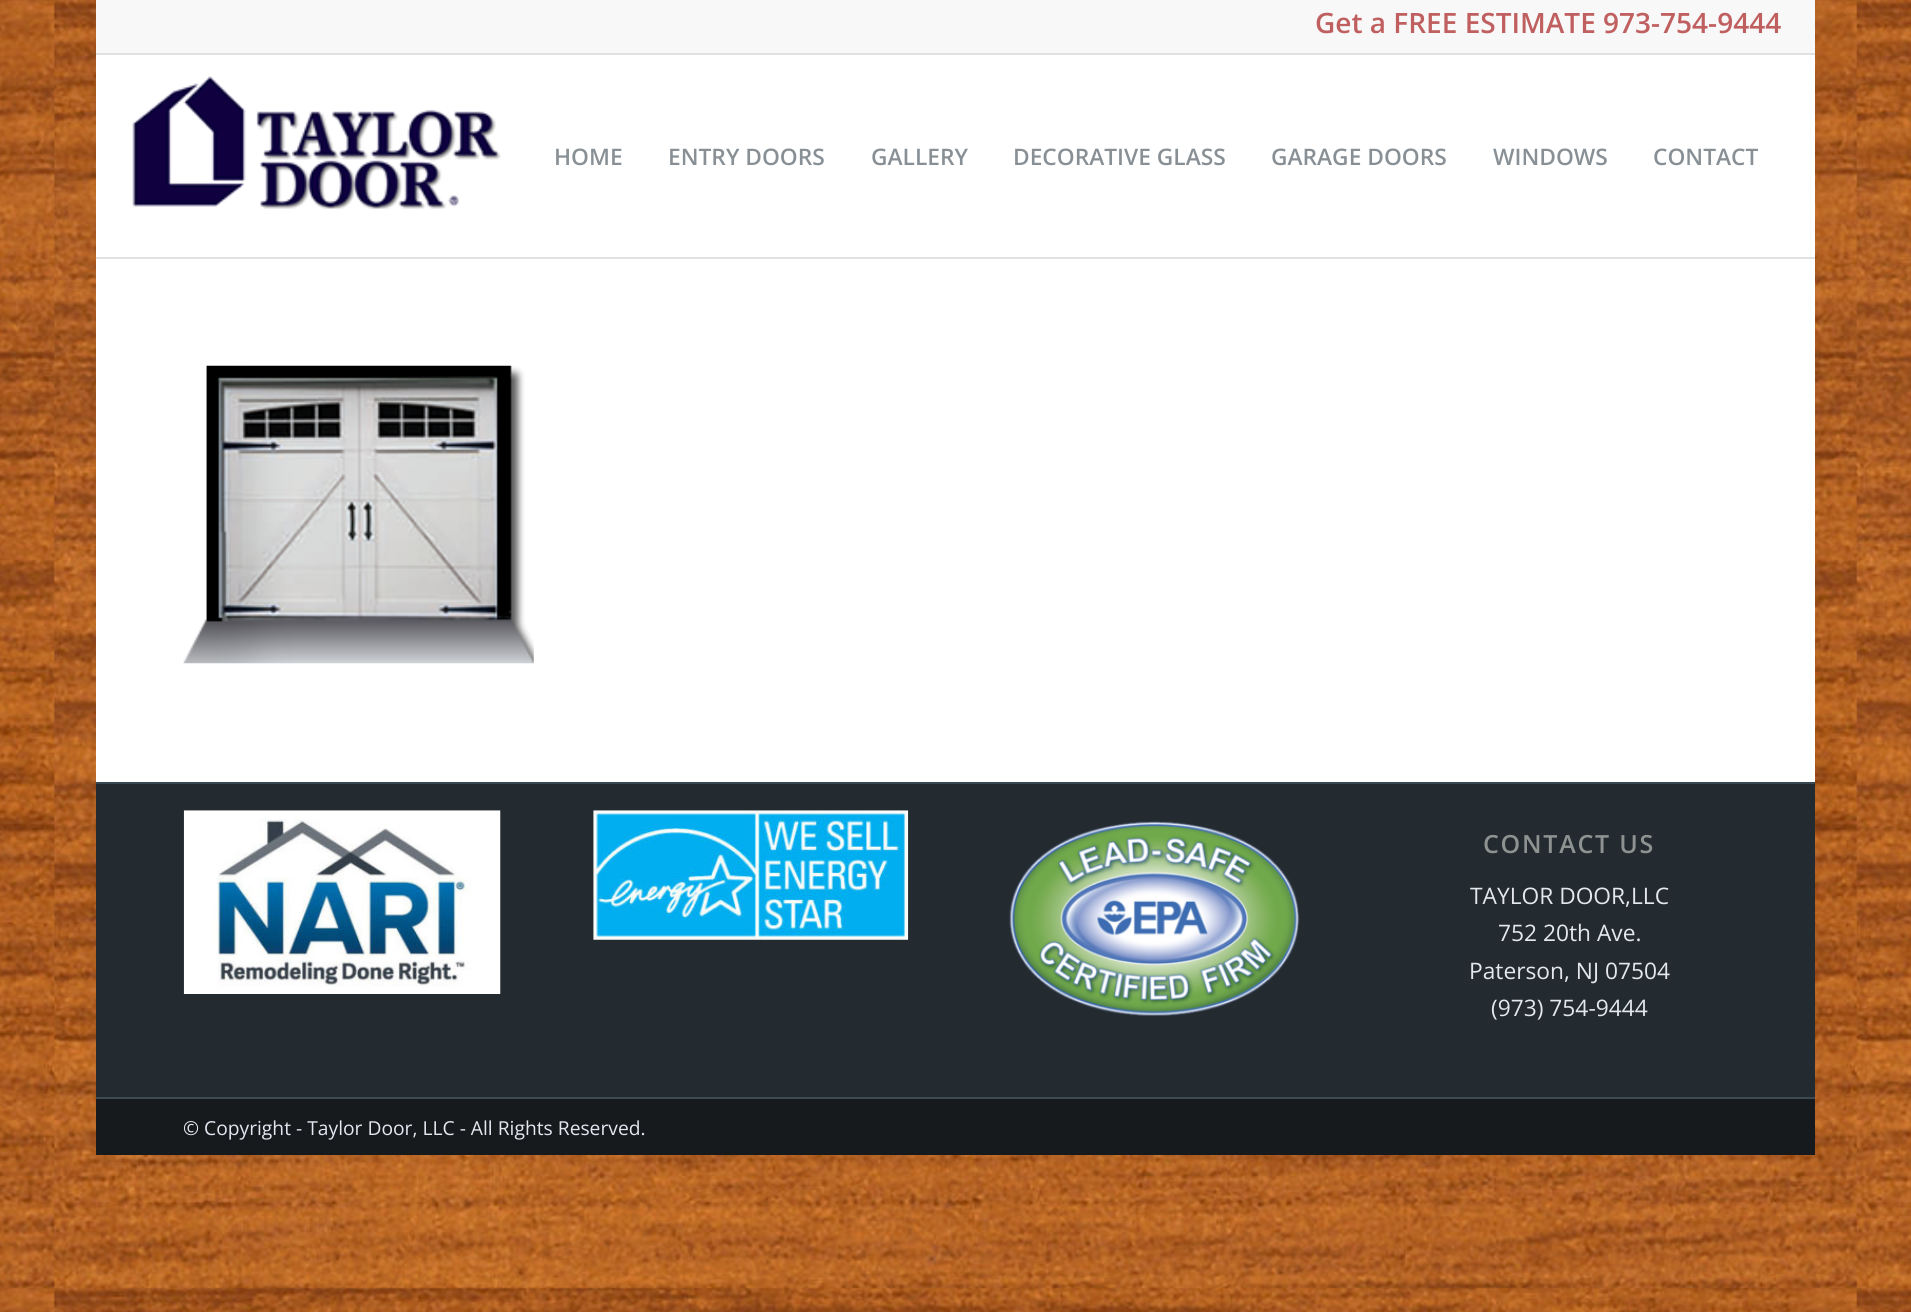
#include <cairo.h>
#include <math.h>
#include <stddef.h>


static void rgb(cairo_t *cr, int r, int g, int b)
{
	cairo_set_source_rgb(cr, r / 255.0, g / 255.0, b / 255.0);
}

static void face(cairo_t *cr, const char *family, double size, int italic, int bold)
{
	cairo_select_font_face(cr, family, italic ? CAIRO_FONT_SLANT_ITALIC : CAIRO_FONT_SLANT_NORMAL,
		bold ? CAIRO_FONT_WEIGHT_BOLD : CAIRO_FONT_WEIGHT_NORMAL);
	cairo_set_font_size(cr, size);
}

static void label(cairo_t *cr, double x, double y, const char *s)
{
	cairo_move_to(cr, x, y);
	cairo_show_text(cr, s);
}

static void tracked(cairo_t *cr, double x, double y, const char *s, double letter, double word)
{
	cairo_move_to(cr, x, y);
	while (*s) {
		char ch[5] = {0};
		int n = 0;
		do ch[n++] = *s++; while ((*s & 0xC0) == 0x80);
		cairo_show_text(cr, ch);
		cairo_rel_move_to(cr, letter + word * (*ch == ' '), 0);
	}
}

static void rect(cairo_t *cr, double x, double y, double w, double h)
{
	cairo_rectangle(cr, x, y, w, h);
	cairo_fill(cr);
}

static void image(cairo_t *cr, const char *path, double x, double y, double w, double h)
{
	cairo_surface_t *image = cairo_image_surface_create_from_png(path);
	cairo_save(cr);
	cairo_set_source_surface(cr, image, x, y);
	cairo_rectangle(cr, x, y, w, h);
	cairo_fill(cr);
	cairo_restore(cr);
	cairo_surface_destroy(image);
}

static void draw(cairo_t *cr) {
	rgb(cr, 255, 255, 255);
	cairo_paint(cr);
	image(cr, "image0.png", 0, 0, 1911, 1312);
	rgb(cr, 248, 248, 248);
	rect(cr, 96, 0, 1719, 53);
	rgb(cr, 225, 225, 225);
	rect(cr, 96, 53, 1719, 2);
	face(cr, "Open Sans SemiBold", 28, 0, 0);
	rgb(cr, 192, 95, 95);
	label(cr, 1315, 33, "Get a FREE ESTIMATE 973-754-9444");
	rgb(cr, 255, 255, 255);
	rect(cr, 96, 55, 1719, 727);
	rgb(cr, 225, 225, 225);
	rect(cr, 96, 257, 1719, 2);
	image(cr, "image1.png", 132, 76, 369, 133);
	face(cr, "Open Sans SemiBold", 22.75, 0, 0);
	rgb(cr, 136, 144, 149);
	label(cr, 554, 165, "HOME");
	label(cr, 668, 165, "ENTRY DOORS");
	label(cr, 871, 165, "GALLERY");
	label(cr, 1013, 165, "DECORATIVE GLASS");
	label(cr, 1271, 165, "GARAGE DOORS");
	label(cr, 1493, 165, "WINDOWS");
	label(cr, 1653, 165, "CONTACT");
	image(cr, "image2.png", 183, 365, 351, 299);
	rgb(cr, 35, 43, 48);
	rect(cr, 96, 784, 1719, 313);
	rgb(cr, 56, 72, 82);
	rect(cr, 96, 782, 1719, 2);
	image(cr, "image3.png", 183, 810, 318, 184);
	image(cr, "image4.png", 593, 810, 316, 130);
	image(cr, "image5.png", 1009, 821, 291, 195);
	face(cr, "Open Sans SemiBold", 25, 0, 0);
	rgb(cr, 142, 147, 146);
	tracked(cr, 1483, 853, "CONTACT US", 1.75, 0);
	face(cr, "Open Sans", 22.75, 0, 0);
	rgb(cr, 228, 230, 240);
	label(cr, 1470, 904, "TAYLOR DOOR,LLC");
	label(cr, 1498, 941, "752 20th Ave.");
	label(cr, 1469, 979, "Paterson, NJ 07504");
	label(cr, 1491, 1016, "(973) 754-9444");
	rgb(cr, 22, 26, 28);
	rect(cr, 96, 1099, 1719, 56);
	rgb(cr, 62, 74, 82);
	rect(cr, 96, 1097, 1719, 2);
	face(cr, "Open Sans", 19.25, 0, 0);
	rgb(cr, 228, 230, 240);
	label(cr, 183, 1135, "© Copyright - Taylor Door, LLC - All Rights Reserved.");
}

int main(void) {
	cairo_surface_t *surface = cairo_image_surface_create(CAIRO_FORMAT_RGB24, 1911, 1312);
	cairo_t *cr = cairo_create(surface);
	cairo_font_options_t *options = cairo_font_options_create();
	cairo_font_options_set_hint_metrics(options, CAIRO_HINT_METRICS_OFF);
	cairo_font_options_set_hint_style(options, CAIRO_HINT_STYLE_NONE);
	cairo_set_font_options(cr, options);
	cairo_set_miter_limit(cr, 4);
	draw(cr);
	cairo_surface_write_to_png(surface, "render.png");
	cairo_font_options_destroy(options);
	cairo_destroy(cr);
	cairo_surface_destroy(surface);
	return 0;
}
